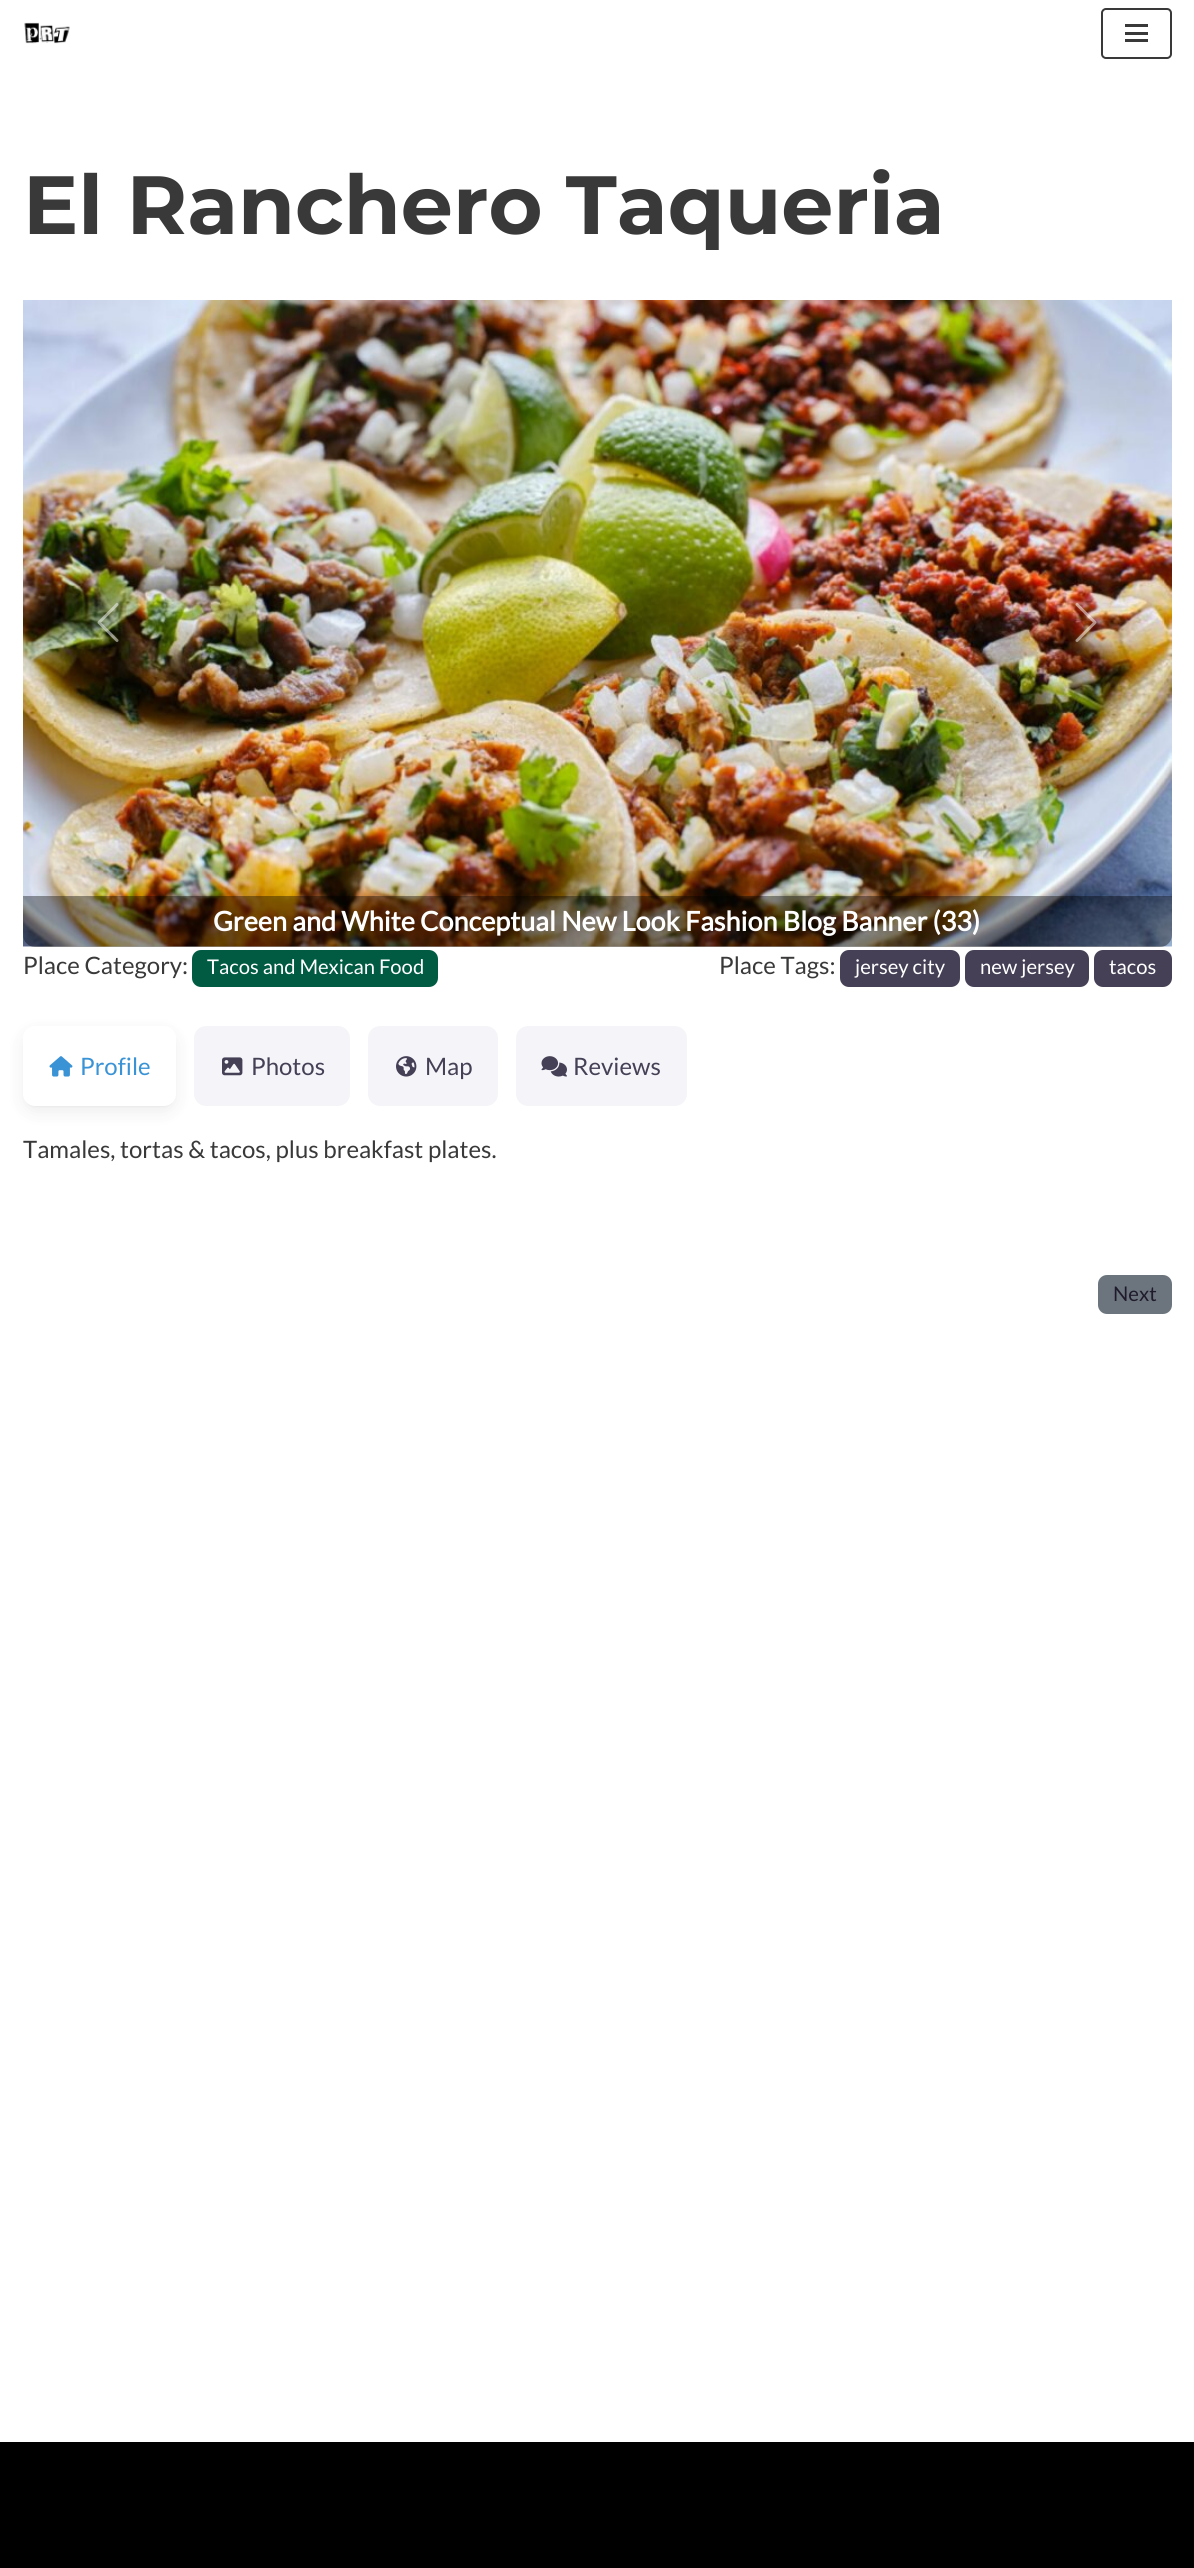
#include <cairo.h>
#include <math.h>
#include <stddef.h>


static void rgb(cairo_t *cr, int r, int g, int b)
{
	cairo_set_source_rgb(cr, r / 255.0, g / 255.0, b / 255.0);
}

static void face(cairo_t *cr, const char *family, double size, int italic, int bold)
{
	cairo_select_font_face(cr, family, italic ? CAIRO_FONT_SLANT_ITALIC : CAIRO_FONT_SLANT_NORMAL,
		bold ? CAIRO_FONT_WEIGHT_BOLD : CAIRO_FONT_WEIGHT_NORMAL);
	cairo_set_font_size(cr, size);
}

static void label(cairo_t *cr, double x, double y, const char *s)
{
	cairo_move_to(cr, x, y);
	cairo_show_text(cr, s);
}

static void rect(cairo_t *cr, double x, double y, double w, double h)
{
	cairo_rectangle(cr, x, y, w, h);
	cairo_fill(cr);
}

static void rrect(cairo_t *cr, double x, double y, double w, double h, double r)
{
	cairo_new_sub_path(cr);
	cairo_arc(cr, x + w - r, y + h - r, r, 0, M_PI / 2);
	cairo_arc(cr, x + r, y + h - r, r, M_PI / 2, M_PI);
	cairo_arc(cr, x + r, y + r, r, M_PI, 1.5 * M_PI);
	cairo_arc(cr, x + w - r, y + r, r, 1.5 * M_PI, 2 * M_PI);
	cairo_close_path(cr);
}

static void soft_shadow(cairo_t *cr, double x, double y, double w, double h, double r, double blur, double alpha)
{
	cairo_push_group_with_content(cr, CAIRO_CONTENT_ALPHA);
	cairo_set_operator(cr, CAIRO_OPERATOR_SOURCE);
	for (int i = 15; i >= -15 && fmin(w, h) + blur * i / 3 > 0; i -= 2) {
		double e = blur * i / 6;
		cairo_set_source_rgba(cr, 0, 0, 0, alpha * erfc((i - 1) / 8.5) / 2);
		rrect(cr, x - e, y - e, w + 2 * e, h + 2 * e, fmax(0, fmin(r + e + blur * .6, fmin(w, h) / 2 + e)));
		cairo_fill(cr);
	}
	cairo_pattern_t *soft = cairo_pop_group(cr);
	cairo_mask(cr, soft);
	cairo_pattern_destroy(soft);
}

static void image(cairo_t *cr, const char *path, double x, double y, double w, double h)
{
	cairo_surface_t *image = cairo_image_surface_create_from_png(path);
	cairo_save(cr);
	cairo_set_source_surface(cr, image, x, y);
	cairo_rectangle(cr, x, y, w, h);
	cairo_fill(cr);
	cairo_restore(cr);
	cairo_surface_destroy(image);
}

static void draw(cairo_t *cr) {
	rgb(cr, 255, 255, 255);
	cairo_paint(cr);
	image(cr, "image0.png", 24, 22, 46, 22);
	rrect(cr, 1102, 9, 69, 49, 4);
	rgb(cr, 57, 57, 57);
	cairo_stroke(cr);
	rect(cr, 1125, 24, 23, 3);
	rect(cr, 1125, 32, 23, 3);
	rect(cr, 1125, 39, 23, 3);
	face(cr, "Montserrat", 82.5, 0, 1);
	label(cr, 23, 234, "El Ranchero Taqueria");
	image(cr, "image3.png", 23, 300, 1149, 647);
	image(cr, "image1.png", 97, 603, 22, 39);
	image(cr, "image2.png", 1075, 603, 22, 39);
	cairo_set_source_rgba(cr, 0, 0, 0, 0.38);
	cairo_new_path(cr);
	cairo_move_to(cr, 23, 896);
	cairo_line_to(cr, 1172, 896);
	cairo_line_to(cr, 1172, 935);
	cairo_curve_to(cr, 1172, 941.5, 1166.5, 947, 1160, 947);
	cairo_line_to(cr, 35, 947);
	cairo_curve_to(cr, 28.5, 947, 23, 941.5, 23, 935);
	cairo_close_path(cr);
	cairo_fill(cr);
	face(cr, "Lato", 27, 0, 1);
	rgb(cr, 255, 255, 255);
	label(cr, 213, 931, "Green and White Conceptual New Look Fashion Blog Banner (33)");
	face(cr, "Lato", 24, 0, 0);
	rgb(cr, 57, 57, 57);
	label(cr, 23, 974, "Place Category:");
	rgb(cr, 1, 91, 67);
	rrect(cr, 192, 950, 246, 37, 9);
	cairo_fill(cr);
	face(cr, "Lato", 20.25, 0, 0);
	rgb(cr, 255, 255, 255);
	label(cr, 207, 974, "Tacos and Mexican Food");
	face(cr, "Lato", 24, 0, 0);
	rgb(cr, 57, 57, 57);
	label(cr, 719, 974, "Place Tags:");
	rgb(cr, 69, 64, 86);
	rrect(cr, 840, 950, 120, 37, 9);
	cairo_fill(cr);
	face(cr, "Lato", 20.25, 0, 0);
	rgb(cr, 255, 255, 255);
	label(cr, 855, 974, "jersey city");
	rgb(cr, 69, 64, 86);
	rrect(cr, 965, 950, 124, 37, 9);
	cairo_fill(cr);
	rgb(cr, 255, 255, 255);
	label(cr, 980, 974, "new jersey");
	rgb(cr, 69, 64, 86);
	rrect(cr, 1094, 950, 78, 37, 9);
	cairo_fill(cr);
	rgb(cr, 255, 255, 255);
	label(cr, 1109, 974, "tacos");
	rgb(cr, 31, 27, 45);
	soft_shadow(cr, 23, 1032, 153, 80, 12, 9, 0.08);
	soft_shadow(cr, 26, 1032, 147, 74, 9, 1.5, 0.08);
	rgb(cr, 255, 255, 255);
	rrect(cr, 23, 1026, 153, 80, 12);
	cairo_fill(cr);
	image(cr, "image4.png", 49, 1056, 24, 21);
	face(cr, "Lato", 24, 0, 0);
	rgb(cr, 57, 147, 213);
	label(cr, 80, 1075, "Profile");
	rgb(cr, 245, 244, 248);
	rrect(cr, 194, 1026, 156, 80, 12);
	cairo_fill(cr);
	image(cr, "image5.png", 222, 1057, 21, 19);
	rgb(cr, 69, 64, 86);
	label(cr, 251, 1075, "Photos");
	rgb(cr, 245, 244, 248);
	rrect(cr, 368, 1026, 130, 80, 12);
	cairo_fill(cr);
	image(cr, "image6.png", 396, 1056, 21, 21);
	rgb(cr, 69, 64, 86);
	label(cr, 425, 1075, "Map");
	rgb(cr, 245, 244, 248);
	rrect(cr, 516, 1026, 171, 80, 12);
	cairo_fill(cr);
	image(cr, "image7.png", 541, 1056, 26, 21);
	rgb(cr, 69, 64, 86);
	label(cr, 573, 1075, "Reviews");
	rgb(cr, 57, 57, 57);
	label(cr, 23, 1158, "Tamales, tortas & tacos, plus breakfast plates.");
	rgb(cr, 108, 117, 125);
	rrect(cr, 1098, 1275, 74, 39, 9);
	cairo_fill(cr);
	face(cr, "Lato", 20.25, 0, 0);
	rgb(cr, 31, 27, 45);
	label(cr, 1113, 1301, "Next");
	rgb(cr, 0, 0, 0);
	rect(cr, 0, 2442, 1194, 126);
}

int main(void) {
	cairo_surface_t *surface = cairo_image_surface_create(CAIRO_FORMAT_RGB24, 1194, 2568);
	cairo_t *cr = cairo_create(surface);
	cairo_font_options_t *options = cairo_font_options_create();
	cairo_font_options_set_hint_metrics(options, CAIRO_HINT_METRICS_OFF);
	cairo_font_options_set_hint_style(options, CAIRO_HINT_STYLE_NONE);
	cairo_set_font_options(cr, options);
	cairo_set_miter_limit(cr, 4);
	draw(cr);
	cairo_surface_write_to_png(surface, "render.png");
	cairo_font_options_destroy(options);
	cairo_destroy(cr);
	cairo_surface_destroy(surface);
	return 0;
}
